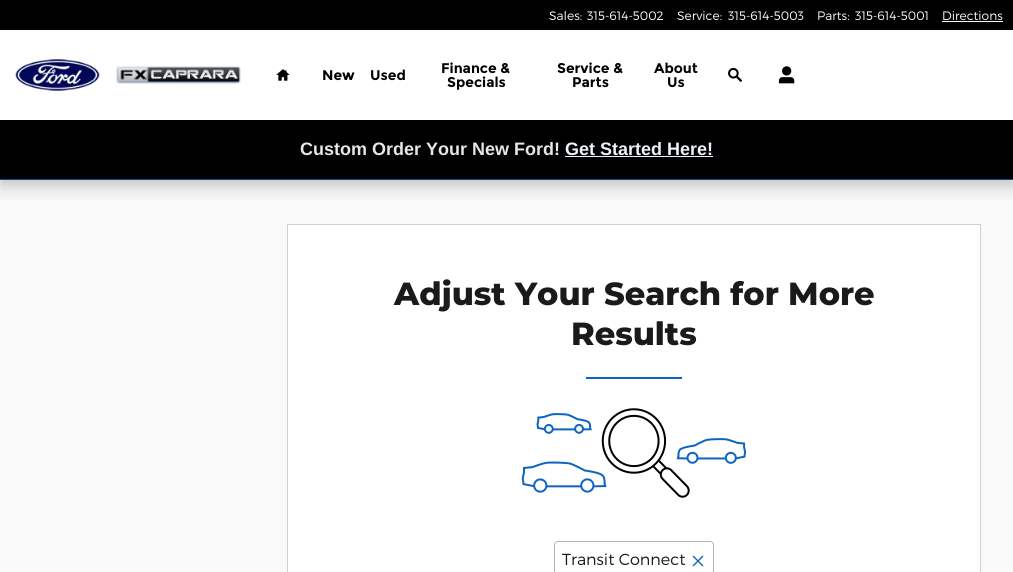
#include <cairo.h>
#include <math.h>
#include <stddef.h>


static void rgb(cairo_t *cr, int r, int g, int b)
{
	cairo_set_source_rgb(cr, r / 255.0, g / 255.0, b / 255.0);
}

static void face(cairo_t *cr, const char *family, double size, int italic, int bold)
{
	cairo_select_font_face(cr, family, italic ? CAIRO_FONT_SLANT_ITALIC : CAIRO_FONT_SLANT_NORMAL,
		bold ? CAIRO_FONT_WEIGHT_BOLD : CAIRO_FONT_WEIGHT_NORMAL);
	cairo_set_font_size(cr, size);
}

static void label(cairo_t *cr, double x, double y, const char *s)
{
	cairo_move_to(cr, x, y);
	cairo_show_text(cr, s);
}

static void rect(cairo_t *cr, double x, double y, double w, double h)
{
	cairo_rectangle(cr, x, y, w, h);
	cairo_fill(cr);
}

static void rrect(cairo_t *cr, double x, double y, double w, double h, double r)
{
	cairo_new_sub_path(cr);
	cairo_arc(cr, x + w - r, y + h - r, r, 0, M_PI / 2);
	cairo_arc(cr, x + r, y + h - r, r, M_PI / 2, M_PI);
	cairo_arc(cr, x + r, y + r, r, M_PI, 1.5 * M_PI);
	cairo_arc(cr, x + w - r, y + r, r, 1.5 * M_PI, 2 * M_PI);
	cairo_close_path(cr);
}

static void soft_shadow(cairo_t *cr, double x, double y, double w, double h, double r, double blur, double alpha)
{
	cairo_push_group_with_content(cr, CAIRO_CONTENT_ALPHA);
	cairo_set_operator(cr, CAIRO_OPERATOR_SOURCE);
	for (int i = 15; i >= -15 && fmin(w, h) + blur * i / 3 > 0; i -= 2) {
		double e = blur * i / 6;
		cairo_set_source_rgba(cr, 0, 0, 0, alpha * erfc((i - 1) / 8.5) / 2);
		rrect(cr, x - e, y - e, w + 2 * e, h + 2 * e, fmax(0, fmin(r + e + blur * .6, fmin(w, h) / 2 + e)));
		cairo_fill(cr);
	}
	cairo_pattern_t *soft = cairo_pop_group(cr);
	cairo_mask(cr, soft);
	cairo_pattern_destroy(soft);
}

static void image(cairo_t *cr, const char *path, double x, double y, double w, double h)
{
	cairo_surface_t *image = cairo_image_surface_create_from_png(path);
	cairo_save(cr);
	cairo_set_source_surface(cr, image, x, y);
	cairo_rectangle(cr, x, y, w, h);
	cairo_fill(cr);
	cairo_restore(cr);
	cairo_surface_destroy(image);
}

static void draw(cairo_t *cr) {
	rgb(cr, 249, 249, 250);
	cairo_paint(cr);
	rgb(cr, 244, 244, 244);
	rect(cr, 0, 180, 1013, 20);
	rgb(cr, 0, 0, 0);
	soft_shadow(cr, 0, 6, 1013, 180, 0, 6, 0.18);
	rgb(cr, 255, 255, 255);
	rect(cr, 0, 30, 1013, 90);
	rgb(cr, 10, 70, 141);
	rect(cr, 0, 179, 1013, 1);
	rgb(cr, 0, 0, 0);
	rect(cr, 0, 0, 1013, 30);
	face(cr, "Montserrat Light", 12.25, 0, 0);
	rgb(cr, 255, 255, 255);
	label(cr, 549, 20, "Sales:");
	label(cr, 587, 20, "315-614-5002");
	label(cr, 677, 20, "Service:");
	label(cr, 728, 20, "315-614-5003");
	label(cr, 817, 20, "Parts:");
	label(cr, 855, 20, "315-614-5001");
	label(cr, 942, 20, "Directions");
	rect(cr, 942, 21, 61, 1);
	image(cr, "image0.png", 15, 59, 85, 32);
	image(cr, "image1.png", 116, 66, 125, 18);
	image(cr, "image2.png", 276, 69, 14, 12);
	face(cr, "Montserrat", 14, 0, 1);
	rgb(cr, 0, 0, 0);
	label(cr, 322, 80, "New");
	label(cr, 370, 80, "Used");
	label(cr, 441, 73, "Finance &");
	label(cr, 447, 87, "Specials");
	label(cr, 557, 73, "Service &");
	label(cr, 572, 87, "Parts");
	label(cr, 654, 73, "About");
	label(cr, 667, 87, "Us");
	image(cr, "image3.png", 728, 67, 14, 15);
	image(cr, "image4.png", 778, 66, 17, 18);
	rect(cr, 0, 120, 1013, 59);
	face(cr, "Liberation Sans", 18, 0, 1);
	rgb(cr, 230, 230, 230);
	label(cr, 300, 155, "Custom Order Your New Ford!");
	rgb(cr, 236, 243, 250);
	label(cr, 565, 155, "Get Started Here!");
	rect(cr, 565, 156, 148, 1);
	rgb(cr, 255, 255, 255);
	cairo_rectangle(cr, 287.5, 224.5, 693, 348);
	cairo_fill_preserve(cr);
	rgb(cr, 206, 207, 209);
	cairo_set_line_width(cr, 1);
	cairo_stroke(cr);
	face(cr, "Montserrat ExtraBold", 32, 0, 0);
	rgb(cr, 26, 26, 26);
	label(cr, 394, 305, "Adjust Your Search for More");
	label(cr, 571, 345, "Results");
	rgb(cr, 13, 101, 191);
	rect(cr, 586, 377, 96, 2);
	image(cr, "image5.png", 521, 408, 226, 90);
	rrect(cr, 554.5, 541.5, 159, 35, 3.5);
	rgb(cr, 179, 180, 183);
	cairo_stroke(cr);
	face(cr, "Montserrat Light", 16, 0, 0);
	rgb(cr, 26, 26, 26);
	label(cr, 562, 565, "Transit Connect");
	image(cr, "image6.png", 692, 555, 12, 12);
}

int main(void) {
	cairo_surface_t *surface = cairo_image_surface_create(CAIRO_FORMAT_RGB24, 1013, 572);
	cairo_t *cr = cairo_create(surface);
	cairo_font_options_t *options = cairo_font_options_create();
	cairo_font_options_set_hint_metrics(options, CAIRO_HINT_METRICS_OFF);
	cairo_font_options_set_hint_style(options, CAIRO_HINT_STYLE_NONE);
	cairo_set_font_options(cr, options);
	cairo_set_miter_limit(cr, 4);
	draw(cr);
	cairo_surface_write_to_png(surface, "render.png");
	cairo_font_options_destroy(options);
	cairo_destroy(cr);
	cairo_surface_destroy(surface);
	return 0;
}
